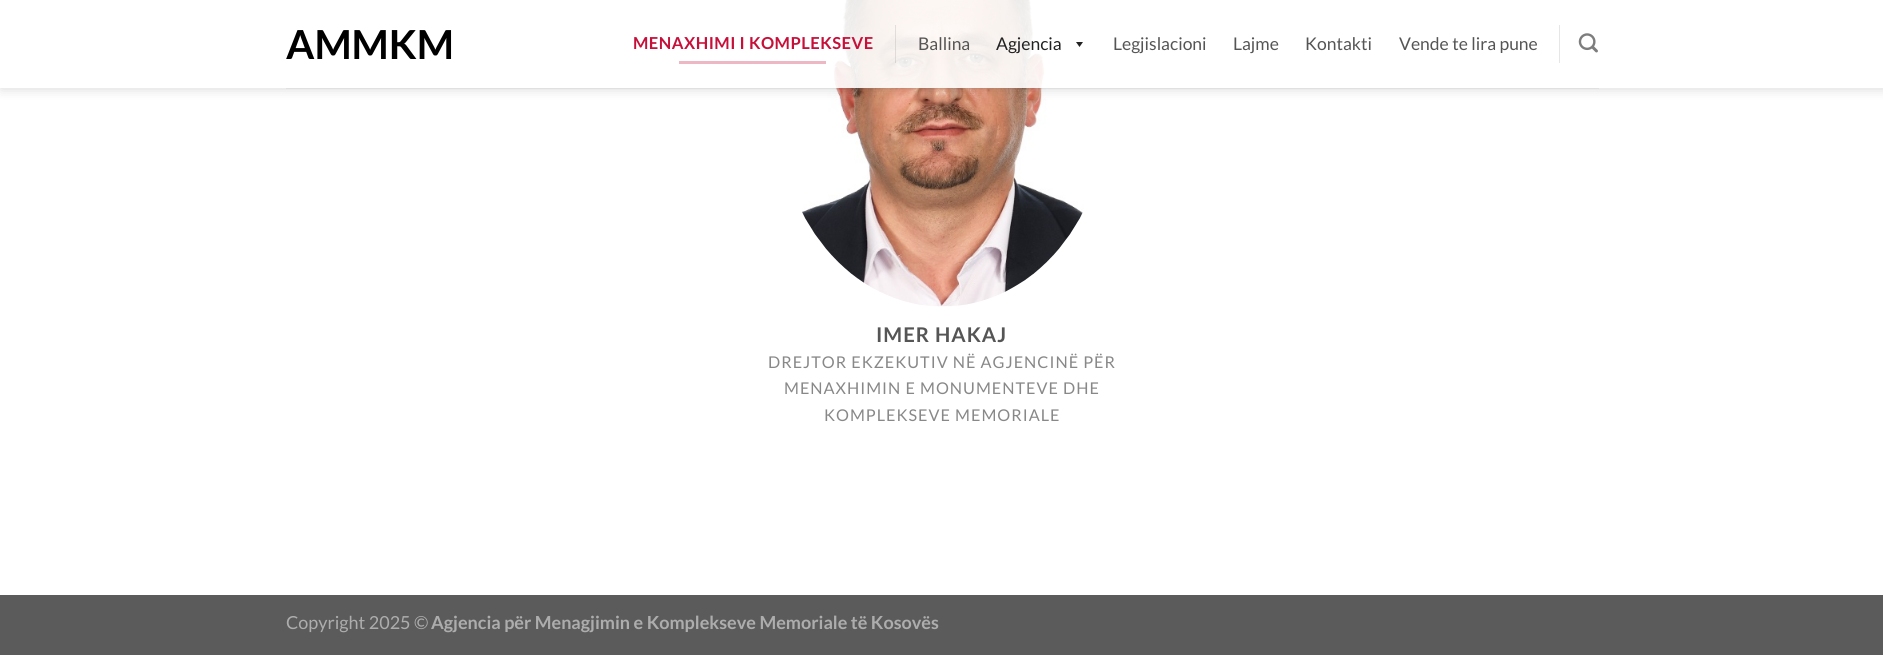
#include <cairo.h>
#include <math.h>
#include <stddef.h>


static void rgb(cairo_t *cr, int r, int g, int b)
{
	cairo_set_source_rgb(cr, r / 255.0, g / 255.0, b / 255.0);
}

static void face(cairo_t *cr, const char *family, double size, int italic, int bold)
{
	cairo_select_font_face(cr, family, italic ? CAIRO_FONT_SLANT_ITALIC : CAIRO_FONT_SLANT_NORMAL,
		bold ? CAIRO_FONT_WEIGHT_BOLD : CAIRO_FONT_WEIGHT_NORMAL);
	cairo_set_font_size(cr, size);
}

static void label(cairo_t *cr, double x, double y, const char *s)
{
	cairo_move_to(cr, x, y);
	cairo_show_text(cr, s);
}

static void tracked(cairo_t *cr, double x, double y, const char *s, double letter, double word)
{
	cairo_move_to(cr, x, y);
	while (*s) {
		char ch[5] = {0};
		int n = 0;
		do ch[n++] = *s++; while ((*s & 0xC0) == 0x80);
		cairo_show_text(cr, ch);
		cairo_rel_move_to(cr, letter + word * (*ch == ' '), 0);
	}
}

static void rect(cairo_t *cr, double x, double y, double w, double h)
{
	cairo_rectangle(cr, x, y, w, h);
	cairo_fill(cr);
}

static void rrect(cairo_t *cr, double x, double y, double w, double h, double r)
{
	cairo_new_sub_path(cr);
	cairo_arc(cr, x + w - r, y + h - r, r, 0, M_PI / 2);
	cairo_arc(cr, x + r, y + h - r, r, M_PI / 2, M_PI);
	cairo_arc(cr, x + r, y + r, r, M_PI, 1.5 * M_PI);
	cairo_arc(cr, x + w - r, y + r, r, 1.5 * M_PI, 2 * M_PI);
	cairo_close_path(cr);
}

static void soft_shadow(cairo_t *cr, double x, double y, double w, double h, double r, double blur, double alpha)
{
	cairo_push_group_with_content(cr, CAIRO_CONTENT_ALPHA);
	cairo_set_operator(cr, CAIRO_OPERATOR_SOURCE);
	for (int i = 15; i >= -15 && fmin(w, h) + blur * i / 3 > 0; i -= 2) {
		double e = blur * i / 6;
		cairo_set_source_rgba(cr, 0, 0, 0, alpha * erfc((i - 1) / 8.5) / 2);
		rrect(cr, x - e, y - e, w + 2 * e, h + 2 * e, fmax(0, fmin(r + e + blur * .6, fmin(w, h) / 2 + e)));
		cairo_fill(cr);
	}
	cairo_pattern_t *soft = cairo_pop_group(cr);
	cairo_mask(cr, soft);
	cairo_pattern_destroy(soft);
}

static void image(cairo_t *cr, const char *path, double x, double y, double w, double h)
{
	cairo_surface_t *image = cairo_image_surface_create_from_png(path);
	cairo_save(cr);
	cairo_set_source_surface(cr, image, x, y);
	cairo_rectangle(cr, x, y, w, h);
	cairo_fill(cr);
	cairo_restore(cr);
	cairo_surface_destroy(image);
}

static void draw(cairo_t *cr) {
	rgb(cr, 255, 255, 255);
	cairo_paint(cr);
	image(cr, "image1.png", 802, 0, 282, 307);
	cairo_save(cr);
	cairo_set_fill_rule(cr, CAIRO_FILL_RULE_EVEN_ODD);
	cairo_new_path(cr);
	cairo_move_to(cr, 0, 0);
	cairo_line_to(cr, 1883, 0);
	cairo_line_to(cr, 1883, 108);
	cairo_line_to(cr, 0, 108);
	cairo_close_path(cr);
	cairo_move_to(cr, 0, 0);
	cairo_line_to(cr, 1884, 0);
	cairo_line_to(cr, 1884, 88);
	cairo_line_to(cr, 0, 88);
	cairo_close_path(cr);
	cairo_clip(cr);
	rgb(cr, 0, 0, 0);
	soft_shadow(cr, 1, 1, 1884, 88, 0, 6, 0.15);
	cairo_restore(cr);
	cairo_set_source_rgba(cr, 1, 1, 1, 0.9);
	rect(cr, 0, 0, 1883, 88);
	face(cr, "Lato", 40, 0, 1);
	rgb(cr, 0, 0, 0);
	label(cr, 286, 59, "AMMKM");
	face(cr, "Lato", 16.5, 0, 1);
	rgb(cr, 198, 16, 58);
	tracked(cr, 633, 49, "MENAXHIMI I KOMPLEKSEVE", 0.5, 0);
	rgb(cr, 238, 183, 196);
	rect(cr, 679, 61, 147, 3);
	cairo_set_source_rgba(cr, 0, 0, 0, 0.1);
	rect(cr, 895, 25, 1, 38);
	face(cr, "Lato", 17.5, 0, 0);
	rgb(cr, 85, 85, 85);
	label(cr, 918, 50, "Ballina");
	rgb(cr, 34, 34, 34);
	label(cr, 996, 50, "Agjencia");
	cairo_new_path(cr);
	cairo_move_to(cr, 1083, 42);
	cairo_line_to(cr, 1079.5, 47);
	cairo_line_to(cr, 1076, 42);
	cairo_close_path(cr);
	cairo_fill(cr);
	rgb(cr, 85, 85, 85);
	label(cr, 1113, 50, "Legjislacioni");
	label(cr, 1233, 50, "Lajme");
	label(cr, 1305, 50, "Kontakti");
	label(cr, 1399, 50, "Vende te lira pune");
	rgb(cr, 230, 230, 230);
	rect(cr, 1559, 25, 1, 38);
	image(cr, "image0.png", 1578, 33, 20, 20);
	cairo_set_source_rgba(cr, 0.467, 0.467, 0.467, 0.1);
	rect(cr, 286, 88, 1313, 1);
	face(cr, "Lato", 20.25, 0, 1);
	rgb(cr, 85, 85, 85);
	tracked(cr, 876, 342, "IMER HAKAJ", 1, 0);
	face(cr, "Lato", 16.2, 0, 0);
	rgb(cr, 136, 136, 136);
	tracked(cr, 768, 368, "DREJTOR EKZEKUTIV NË AGJENCINË PËR", 1, 0);
	tracked(cr, 784, 394, "MENAXHIMIN E MONUMENTEVE DHE", 1, 0);
	tracked(cr, 824, 421, "KOMPLEKSEVE MEMORIALE", 1, 0);
	rgb(cr, 91, 91, 91);
	rect(cr, 0, 595, 1883, 60);
	face(cr, "Lato", 18, 0, 0);
	rgb(cr, 173, 173, 173);
	label(cr, 286, 629, "Copyright 2025 ©");
	face(cr, "Lato", 18, 0, 1);
	label(cr, 431, 629, "Agjencia për Menagjimin e Komplekseve Memoriale të Kosovës");
}

int main(void) {
	cairo_surface_t *surface = cairo_image_surface_create(CAIRO_FORMAT_RGB24, 1883, 655);
	cairo_t *cr = cairo_create(surface);
	cairo_font_options_t *options = cairo_font_options_create();
	cairo_font_options_set_hint_metrics(options, CAIRO_HINT_METRICS_OFF);
	cairo_font_options_set_hint_style(options, CAIRO_HINT_STYLE_NONE);
	cairo_set_font_options(cr, options);
	cairo_set_miter_limit(cr, 4);
	draw(cr);
	cairo_surface_write_to_png(surface, "render.png");
	cairo_font_options_destroy(options);
	cairo_destroy(cr);
	cairo_surface_destroy(surface);
	return 0;
}
